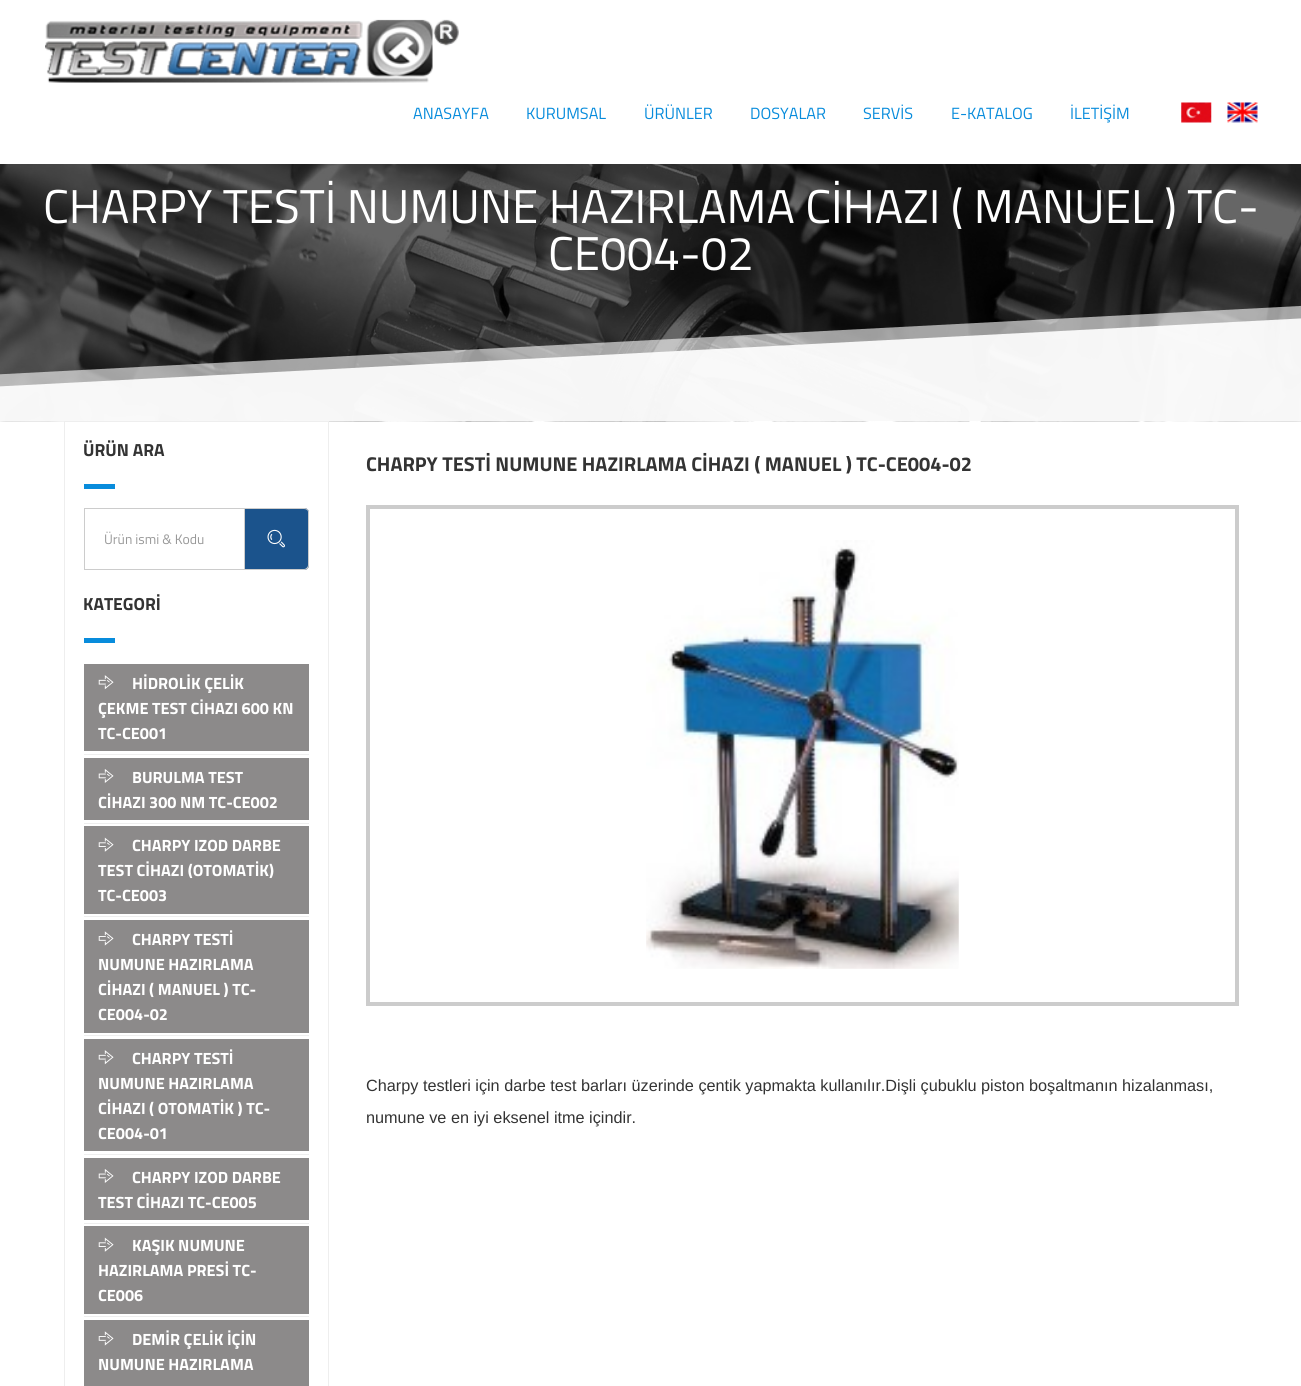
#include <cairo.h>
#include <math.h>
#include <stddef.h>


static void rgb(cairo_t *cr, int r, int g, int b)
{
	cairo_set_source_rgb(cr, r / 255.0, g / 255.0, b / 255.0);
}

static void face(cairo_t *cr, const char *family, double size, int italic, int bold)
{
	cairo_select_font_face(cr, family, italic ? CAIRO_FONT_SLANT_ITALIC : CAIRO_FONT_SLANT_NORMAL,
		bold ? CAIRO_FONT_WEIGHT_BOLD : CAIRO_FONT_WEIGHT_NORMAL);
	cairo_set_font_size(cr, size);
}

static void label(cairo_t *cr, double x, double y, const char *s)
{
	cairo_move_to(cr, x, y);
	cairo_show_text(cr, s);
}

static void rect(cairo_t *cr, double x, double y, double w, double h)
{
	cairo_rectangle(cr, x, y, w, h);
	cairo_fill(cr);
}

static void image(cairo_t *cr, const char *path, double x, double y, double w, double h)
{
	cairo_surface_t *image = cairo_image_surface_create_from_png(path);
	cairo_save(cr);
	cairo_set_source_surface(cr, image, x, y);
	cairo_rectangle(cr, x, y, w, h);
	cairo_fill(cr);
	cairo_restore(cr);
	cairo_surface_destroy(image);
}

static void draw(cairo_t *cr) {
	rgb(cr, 255, 255, 255);
	cairo_paint(cr);
	image(cr, "image0.png", 45, 19, 414, 64);
	face(cr, "Titillium Web", 16.25, 0, 0);
	rgb(cr, 8, 140, 220);
	label(cr, 413, 119, "ANASAYFA");
	label(cr, 526, 119, "KURUMSAL");
	label(cr, 644, 119, "ÜRÜNLER");
	label(cr, 750, 119, "DOSYALAR");
	label(cr, 863, 119, "SERVİS");
	label(cr, 951, 119, "E-KATALOG");
	label(cr, 1070, 119, "İLETİŞİM");
	image(cr, "image1.png", 1181, 102, 31, 21);
	image(cr, "image2.png", 1227, 102, 31, 21);
	image(cr, "image3.png", 0, 164, 1301, 258);
	face(cr, "Titillium Web", 47.5, 0, 0);
	rgb(cr, 255, 255, 255);
	label(cr, 43, 223, "CHARPY TESTİ NUMUNE HAZIRLAMA CİHAZI ( MANUEL ) TC-");
	label(cr, 548, 270, "CE004-02");
	cairo_save(cr);
	cairo_rectangle(cr, 0, 0, 1301, 421);
	cairo_clip(cr);
	cairo_set_source_rgba(cr, 1, 1, 1, 0.6);
	cairo_new_path(cr);
	cairo_move_to(cr, -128, 381);
	cairo_line_to(cr, 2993, 217);
	cairo_line_to(cr, 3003, 402);
	cairo_line_to(cr, -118, 565);
	cairo_close_path(cr);
	cairo_fill(cr);
	cairo_set_source_rgba(cr, 1, 1, 1, 0.9);
	cairo_new_path(cr);
	cairo_move_to(cr, -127, 393);
	cairo_line_to(cr, 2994, 230);
	cairo_line_to(cr, 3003, 414);
	cairo_line_to(cr, -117, 578);
	cairo_close_path(cr);
	cairo_fill(cr);
	cairo_restore(cr);
	cairo_rectangle(cr, 64.5, 421.5, 264, 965);
	rgb(cr, 238, 238, 238);
	cairo_set_line_width(cr, 1);
	cairo_stroke(cr);
	face(cr, "Titillium Web", 17.5, 0, 1);
	rgb(cr, 51, 51, 51);
	label(cr, 83, 456, "ÜRÜN ARA");
	rgb(cr, 8, 140, 220);
	rect(cr, 84, 484, 31, 5);
	cairo_rectangle(cr, 84.5, 508.5, 160, 61);
	rgb(cr, 204, 204, 204);
	cairo_stroke(cr);
	face(cr, "Titillium Web", 13.75, 0, 0);
	rgb(cr, 153, 153, 153);
	label(cr, 104, 544, "Ürün ismi & Kodu");
	rgb(cr, 27, 83, 140);
	cairo_new_path(cr);
	cairo_move_to(cr, 245, 508);
	cairo_line_to(cr, 304, 508);
	cairo_curve_to(cr, 307, 508, 309, 510, 309, 513);
	cairo_line_to(cr, 309, 565);
	cairo_curve_to(cr, 309, 568, 307, 570, 304, 570);
	cairo_line_to(cr, 245, 570);
	cairo_close_path(cr);
	cairo_fill(cr);
	rgb(cr, 204, 204, 204);
	cairo_set_fill_rule(cr, CAIRO_FILL_RULE_EVEN_ODD);
	cairo_new_path(cr);
	cairo_move_to(cr, 245, 508);
	cairo_line_to(cr, 304, 508);
	cairo_curve_to(cr, 307, 508, 309, 510, 309, 512);
	cairo_line_to(cr, 309, 565);
	cairo_curve_to(cr, 309, 568, 307, 570, 304, 570);
	cairo_line_to(cr, 245, 570);
	cairo_close_path(cr);
	cairo_move_to(cr, 245, 509);
	cairo_line_to(cr, 304, 509);
	cairo_curve_to(cr, 306, 509, 308, 510, 308, 512);
	cairo_line_to(cr, 308, 565);
	cairo_curve_to(cr, 308, 567, 306, 569, 304, 569);
	cairo_line_to(cr, 245, 569);
	cairo_close_path(cr);
	cairo_fill(cr);
	image(cr, "image4.png", 267, 529, 18, 19);
	face(cr, "Titillium Web", 17.5, 0, 1);
	rgb(cr, 51, 51, 51);
	label(cr, 83, 610, "KATEGORİ");
	rgb(cr, 8, 140, 220);
	rect(cr, 84, 638, 31, 5);
	rgb(cr, 238, 238, 238);
	rect(cr, 84, 754, 225, 1);
	rgb(cr, 140, 138, 138);
	rect(cr, 84, 664, 225, 87);
	image(cr, "image5.png", 98, 675, 16, 15);
	face(cr, "Titillium Web", 16.25, 0, 1);
	rgb(cr, 255, 255, 255);
	label(cr, 132, 689, "HİDROLİK ÇELİK");
	label(cr, 98, 714, "ÇEKME TEST CİHAZI 600 KN");
	label(cr, 98, 739, "TC-CE001");
	rgb(cr, 238, 238, 238);
	rect(cr, 84, 823, 225, 1);
	rgb(cr, 140, 138, 138);
	rect(cr, 84, 758, 225, 62);
	image(cr, "image6.png", 98, 769, 16, 14);
	rgb(cr, 255, 255, 255);
	label(cr, 132, 783, "BURULMA TEST");
	label(cr, 98, 808, "CİHAZI 300 NM TC-CE002");
	rgb(cr, 238, 238, 238);
	rect(cr, 84, 916, 225, 1);
	rgb(cr, 140, 138, 138);
	rect(cr, 84, 826, 225, 88);
	image(cr, "image7.png", 98, 837, 16, 15);
	rgb(cr, 255, 255, 255);
	label(cr, 132, 851, "CHARPY IZOD DARBE");
	label(cr, 98, 876, "TEST CİHAZI (OTOMATİK)");
	label(cr, 98, 901, "TC-CE003");
	rgb(cr, 238, 238, 238);
	rect(cr, 84, 1035, 225, 1);
	rgb(cr, 140, 138, 138);
	rect(cr, 84, 920, 225, 113);
	image(cr, "image8.png", 98, 931, 16, 15);
	rgb(cr, 255, 255, 255);
	label(cr, 132, 945, "CHARPY TESTİ");
	label(cr, 98, 970, "NUMUNE HAZIRLAMA");
	label(cr, 98, 995, "CİHAZI ( MANUEL ) TC-");
	label(cr, 98, 1020, "CE004-02");
	rgb(cr, 238, 238, 238);
	rect(cr, 84, 1154, 225, 1);
	rgb(cr, 140, 138, 138);
	rect(cr, 84, 1039, 225, 112);
	image(cr, "image5.png", 98, 1050, 16, 15);
	rgb(cr, 255, 255, 255);
	label(cr, 132, 1064, "CHARPY TESTİ");
	label(cr, 98, 1089, "NUMUNE HAZIRLAMA");
	label(cr, 98, 1114, "CİHAZI ( OTOMATİK ) TC-");
	label(cr, 98, 1139, "CE004-01");
	rgb(cr, 238, 238, 238);
	rect(cr, 84, 1223, 225, 1);
	rgb(cr, 140, 138, 138);
	rect(cr, 84, 1158, 225, 62);
	image(cr, "image6.png", 98, 1169, 16, 14);
	rgb(cr, 255, 255, 255);
	label(cr, 132, 1183, "CHARPY IZOD DARBE");
	label(cr, 98, 1208, "TEST CİHAZI TC-CE005");
	rgb(cr, 238, 238, 238);
	rect(cr, 84, 1316, 225, 1);
	rgb(cr, 140, 138, 138);
	rect(cr, 84, 1226, 225, 88);
	image(cr, "image7.png", 98, 1237, 16, 15);
	rgb(cr, 255, 255, 255);
	label(cr, 132, 1251, "KAŞIK NUMUNE");
	label(cr, 98, 1276, "HAZIRLAMA PRESİ TC-");
	label(cr, 98, 1301, "CE006");
	rgb(cr, 140, 138, 138);
	rect(cr, 84, 1320, 225, 66);
	image(cr, "image8.png", 98, 1331, 16, 15);
	rgb(cr, 255, 255, 255);
	label(cr, 132, 1345, "DEMİR ÇELİK İÇİN");
	label(cr, 98, 1370, "NUMUNE HAZIRLAMA");
	face(cr, "Titillium Web", 20, 0, 1);
	rgb(cr, 51, 51, 51);
	label(cr, 366, 471, "CHARPY TESTİ NUMUNE HAZIRLAMA CİHAZI ( MANUEL ) TC-CE004-02");
	cairo_rectangle(cr, 368, 507, 869, 497);
	rgb(cr, 204, 204, 204);
	cairo_set_line_width(cr, 4);
	cairo_stroke(cr);
	image(cr, "image9.png", 646, 540, 313, 429);
	face(cr, "Liberation Sans", 16.25, 0, 0);
	rgb(cr, 51, 51, 51);
	label(cr, 366, 1091, "Charpy testleri için darbe test barları üzerinde çentik yapmakta kullanılır.Dişli çubuklu piston boşaltmanın hizalanması,");
	label(cr, 366, 1123, "numune ve en iyi eksenel itme içindir.");
}

int main(void) {
	cairo_surface_t *surface = cairo_image_surface_create(CAIRO_FORMAT_RGB24, 1301, 1386);
	cairo_t *cr = cairo_create(surface);
	cairo_font_options_t *options = cairo_font_options_create();
	cairo_font_options_set_hint_metrics(options, CAIRO_HINT_METRICS_OFF);
	cairo_font_options_set_hint_style(options, CAIRO_HINT_STYLE_NONE);
	cairo_set_font_options(cr, options);
	cairo_set_miter_limit(cr, 4);
	draw(cr);
	cairo_surface_write_to_png(surface, "render.png");
	cairo_font_options_destroy(options);
	cairo_destroy(cr);
	cairo_surface_destroy(surface);
	return 0;
}
